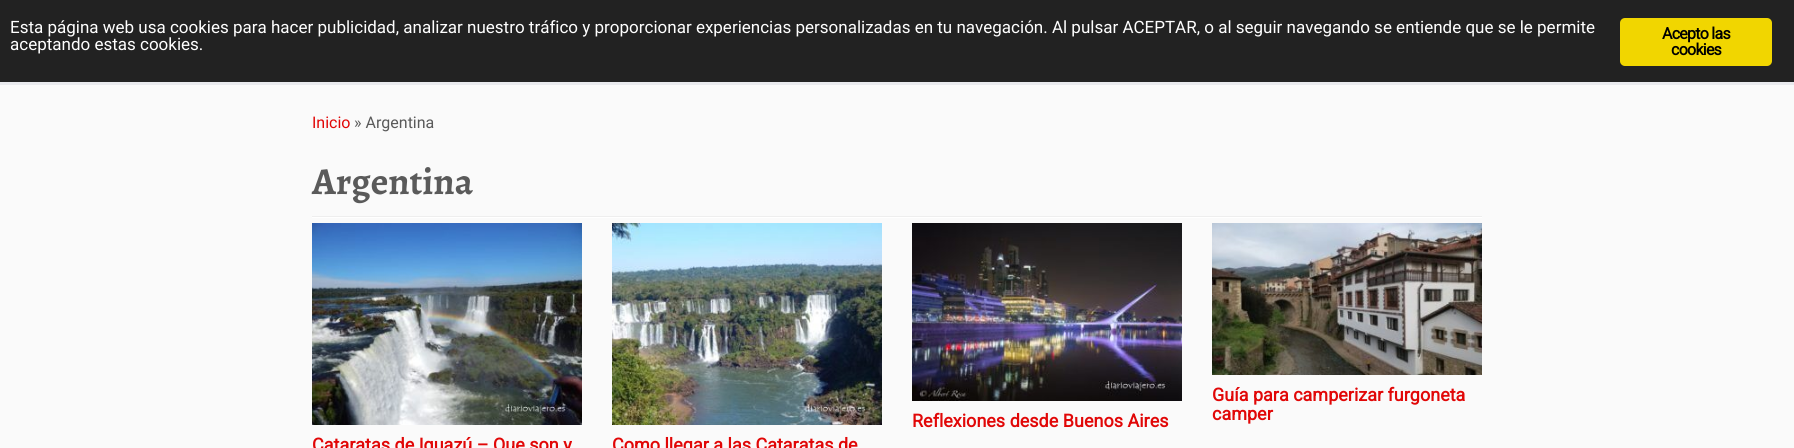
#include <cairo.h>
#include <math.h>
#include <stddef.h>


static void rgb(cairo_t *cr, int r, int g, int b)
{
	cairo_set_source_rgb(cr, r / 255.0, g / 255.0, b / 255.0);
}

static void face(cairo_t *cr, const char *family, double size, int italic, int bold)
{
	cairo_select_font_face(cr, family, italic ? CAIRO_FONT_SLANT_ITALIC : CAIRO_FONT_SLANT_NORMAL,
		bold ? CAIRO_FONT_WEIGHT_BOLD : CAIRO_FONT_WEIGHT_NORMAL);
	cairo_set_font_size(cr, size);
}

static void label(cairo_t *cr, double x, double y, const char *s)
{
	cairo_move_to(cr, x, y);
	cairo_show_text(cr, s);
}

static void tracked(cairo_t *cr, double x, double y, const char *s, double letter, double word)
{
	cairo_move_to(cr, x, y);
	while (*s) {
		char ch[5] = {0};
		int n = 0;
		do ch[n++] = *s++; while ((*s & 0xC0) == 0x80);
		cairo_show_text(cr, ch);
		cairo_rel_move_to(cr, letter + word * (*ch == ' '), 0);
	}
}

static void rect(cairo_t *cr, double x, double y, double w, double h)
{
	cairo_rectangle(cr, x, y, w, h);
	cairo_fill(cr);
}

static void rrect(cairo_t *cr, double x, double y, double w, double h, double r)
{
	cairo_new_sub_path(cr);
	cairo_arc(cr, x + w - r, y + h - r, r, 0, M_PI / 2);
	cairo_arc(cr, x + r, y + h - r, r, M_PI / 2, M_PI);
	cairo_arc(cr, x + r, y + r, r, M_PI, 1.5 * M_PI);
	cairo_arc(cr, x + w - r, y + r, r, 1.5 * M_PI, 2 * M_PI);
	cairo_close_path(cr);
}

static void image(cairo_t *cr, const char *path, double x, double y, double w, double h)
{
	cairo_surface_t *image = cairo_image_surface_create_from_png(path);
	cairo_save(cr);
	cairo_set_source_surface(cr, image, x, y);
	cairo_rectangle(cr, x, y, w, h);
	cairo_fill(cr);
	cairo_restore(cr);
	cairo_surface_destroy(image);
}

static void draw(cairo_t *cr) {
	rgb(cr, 250, 250, 250);
	cairo_paint(cr);
	rgb(cr, 34, 34, 34);
	rect(cr, 0, 0, 1794, 82);
	face(cr, "Roboto", 17, 0, 0);
	rgb(cr, 255, 255, 255);
	label(cr, 10, 33, "Esta página web usa cookies para hacer publicidad, analizar nuestro tráfico y proporcionar experiencias personalizadas en tu navegación. Al pulsar ACEPTAR, o al seguir navegando se entiende que se le permite");
	label(cr, 10, 50, "aceptando estas cookies.");
	rgb(cr, 241, 214, 0);
	rrect(cr, 1620, 18, 152, 48, 5);
	cairo_fill(cr);
	face(cr, "Roboto", 16, 0, 1);
	rgb(cr, 0, 0, 0);
	tracked(cr, 1662, 39, "Acepto las", -0.75, 0);
	tracked(cr, 1671, 55, "cookies", -0.75, 0);
	rgb(cr, 233, 234, 238);
	rect(cr, 0, 82, 1794, 3);
	face(cr, "Roboto", 16, 0, 0);
	rgb(cr, 225, 7, 7);
	label(cr, 312, 128, "Inicio");
	rgb(cr, 90, 90, 90);
	label(cr, 354, 128, "» Argentina");
	face(cr, "Alegreya", 38, 0, 1);
	label(cr, 312, 194, "Argentina");
	rgb(cr, 238, 238, 238);
	rect(cr, 312, 216, 1170, 1);
	rgb(cr, 255, 255, 255);
	rect(cr, 312, 217, 1170, 1);
	image(cr, "image0.png", 912, 223, 270, 178);
	face(cr, "Roboto", 18, 0, 1);
	rgb(cr, 225, 7, 7);
	label(cr, 912, 427, "Reflexiones desde Buenos Aires");
	image(cr, "image1.png", 1212, 223, 270, 152);
	label(cr, 1212, 401, "Guía para camperizar furgoneta");
	label(cr, 1212, 420, "camper");
	image(cr, "image2.png", 312, 223, 270, 202);
	label(cr, 312, 451, "Cataratas de Iguazú – Que son y");
	image(cr, "image3.png", 612, 223, 270, 202);
	label(cr, 612, 451, "Como llegar a las Cataratas de");
}

int main(void) {
	cairo_surface_t *surface = cairo_image_surface_create(CAIRO_FORMAT_RGB24, 1794, 448);
	cairo_t *cr = cairo_create(surface);
	cairo_font_options_t *options = cairo_font_options_create();
	cairo_font_options_set_hint_metrics(options, CAIRO_HINT_METRICS_OFF);
	cairo_font_options_set_hint_style(options, CAIRO_HINT_STYLE_NONE);
	cairo_set_font_options(cr, options);
	cairo_set_miter_limit(cr, 4);
	draw(cr);
	cairo_surface_write_to_png(surface, "render.png");
	cairo_font_options_destroy(options);
	cairo_destroy(cr);
	cairo_surface_destroy(surface);
	return 0;
}
